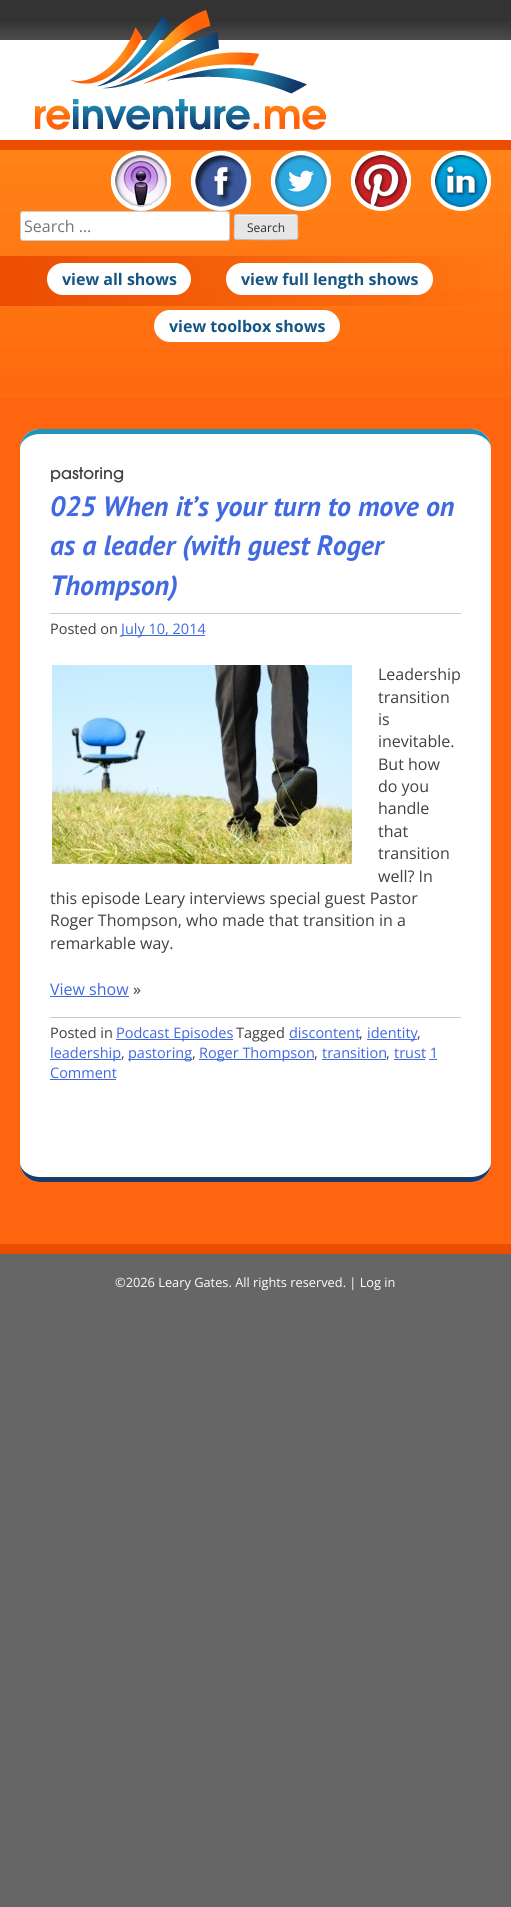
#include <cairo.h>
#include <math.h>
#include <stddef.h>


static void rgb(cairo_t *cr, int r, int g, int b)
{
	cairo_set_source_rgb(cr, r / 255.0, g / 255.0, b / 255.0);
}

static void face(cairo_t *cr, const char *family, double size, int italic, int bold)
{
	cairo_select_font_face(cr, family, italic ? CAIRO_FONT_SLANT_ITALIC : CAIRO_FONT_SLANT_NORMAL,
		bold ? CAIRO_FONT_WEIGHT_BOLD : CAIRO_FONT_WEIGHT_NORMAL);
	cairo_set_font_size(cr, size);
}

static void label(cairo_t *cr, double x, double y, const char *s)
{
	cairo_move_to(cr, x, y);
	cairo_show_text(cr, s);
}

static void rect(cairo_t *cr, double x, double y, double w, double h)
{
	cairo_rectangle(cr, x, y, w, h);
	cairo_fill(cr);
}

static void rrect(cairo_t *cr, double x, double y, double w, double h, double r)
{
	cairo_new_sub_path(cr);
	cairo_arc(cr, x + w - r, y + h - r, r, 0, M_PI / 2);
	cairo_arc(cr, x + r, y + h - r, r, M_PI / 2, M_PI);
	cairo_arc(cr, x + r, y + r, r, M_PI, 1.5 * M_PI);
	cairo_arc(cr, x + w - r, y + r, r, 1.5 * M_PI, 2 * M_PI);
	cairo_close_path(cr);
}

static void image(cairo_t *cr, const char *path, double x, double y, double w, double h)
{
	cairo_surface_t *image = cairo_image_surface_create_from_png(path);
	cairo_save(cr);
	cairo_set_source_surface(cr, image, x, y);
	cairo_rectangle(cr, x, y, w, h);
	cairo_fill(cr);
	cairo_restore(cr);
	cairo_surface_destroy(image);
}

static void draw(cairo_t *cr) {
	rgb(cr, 102, 102, 102);
	cairo_paint(cr);
	rgb(cr, 255, 100, 14);
	rect(cr, 0, 398, 511, 846);
	image(cr, "image0.png", 0, 0, 511, 398);
	rgb(cr, 235, 77, 2);
	rect(cr, 0, 1244, 511, 10);
	image(cr, "image1.png", 35, 10, 292, 120);
	image(cr, "image2.png", 111, 151, 60, 60);
	image(cr, "image3.png", 115, 155, 52, 52);
	image(cr, "image2.png", 191, 151, 60, 60);
	image(cr, "image4.png", 195, 155, 52, 52);
	image(cr, "image2.png", 271, 151, 60, 60);
	image(cr, "image5.png", 275, 155, 52, 52);
	image(cr, "image2.png", 351, 151, 60, 60);
	image(cr, "image6.png", 355, 155, 52, 52);
	image(cr, "image2.png", 431, 151, 60, 60);
	image(cr, "image7.png", 435, 155, 52, 52);
	rgb(cr, 255, 255, 255);
	rrect(cr, 20.5, 211.5, 209, 29, 2.5);
	cairo_fill_preserve(cr);
	rgb(cr, 204, 204, 204);
	cairo_set_line_width(cr, 1);
	cairo_stroke(cr);
	face(cr, "Open Sans", 16, 0, 0);
	rgb(cr, 117, 117, 117);
	label(cr, 24, 232, "Search …");
	rgb(cr, 230, 230, 230);
	rrect(cr, 234, 214, 64, 26, 3);
	cairo_fill(cr);
	rgb(cr, 243, 243, 243);
	cairo_new_path(cr);
	cairo_move_to(cr, 237, 216);
	cairo_line_to(cr, 295, 216);
	cairo_curve_to(cr, 296, 216, 297, 217, 297, 218);
	cairo_curve_to(cr, 297, 212, 289, 215, 285, 215);
	cairo_line_to(cr, 247, 215);
	cairo_curve_to(cr, 243, 215, 235, 212, 235, 218);
	cairo_curve_to(cr, 235, 217, 236, 216, 237, 216);
	cairo_close_path(cr);
	cairo_fill(cr);
	cairo_new_path(cr);
	cairo_move_to(cr, 297, 239);
	cairo_line_to(cr, 295, 239.5);
	cairo_curve_to(cr, 290, 240, 236.5, 240, 235.5, 239);
	cairo_line_to(cr, 235, 239);
	rgb(cr, 187, 187, 187);
	cairo_stroke(cr);
	cairo_new_path(cr);
	cairo_move_to(cr, 235, 239);
	cairo_curve_to(cr, 233.5, 237, 234.5, 229.5, 234.5, 227);
	cairo_curve_to(cr, 234.5, 212.5, 232, 214.5, 246.5, 214.5);
	cairo_line_to(cr, 285.5, 214.5);
	cairo_curve_to(cr, 300, 214.5, 297.5, 212.5, 297.5, 227);
	cairo_curve_to(cr, 297.5, 229.5, 298.5, 237, 297, 239);
	rgb(cr, 204, 204, 204);
	cairo_stroke(cr);
	face(cr, "Open Sans", 12, 0, 0);
	rgb(cr, 46, 46, 46);
	label(cr, 247, 232, "Search");
	rgb(cr, 255, 255, 255);
	rrect(cr, 47, 263, 144, 32, 16);
	cairo_fill(cr);
	face(cr, "Open Sans", 16, 0, 1);
	rgb(cr, 22, 86, 132);
	label(cr, 62, 285, "view all shows");
	rgb(cr, 255, 255, 255);
	rrect(cr, 226, 263, 207, 32, 16);
	cairo_fill(cr);
	rgb(cr, 22, 86, 132);
	label(cr, 241, 285, "view full length shows");
	rgb(cr, 255, 255, 255);
	rrect(cr, 154, 310, 186, 32, 16);
	cairo_fill(cr);
	rgb(cr, 22, 86, 132);
	label(cr, 169, 332, "view toolbox shows");
	rgb(cr, 255, 255, 255);
	rrect(cr, 20, 429, 471, 753, 20);
	cairo_fill(cr);
	rgb(cr, 32, 148, 190);
	cairo_new_path(cr);
	cairo_move_to(cr, 40, 429);
	cairo_curve_to(cr, 29, 429, 20, 438, 20, 449);
	cairo_curve_to(cr, 20, 441, 29, 434, 40, 434);
	cairo_line_to(cr, 471, 434);
	cairo_curve_to(cr, 482, 434, 491, 441, 491, 449);
	cairo_curve_to(cr, 491, 438, 482, 429, 471, 429);
	cairo_close_path(cr);
	cairo_fill(cr);
	rgb(cr, 22, 60, 107);
	cairo_new_path(cr);
	cairo_move_to(cr, 471, 1182);
	cairo_curve_to(cr, 482, 1182, 491, 1173, 491, 1162);
	cairo_curve_to(cr, 491, 1170, 482, 1177, 471, 1177);
	cairo_line_to(cr, 40, 1177);
	cairo_curve_to(cr, 29, 1177, 20, 1170, 20, 1162);
	cairo_curve_to(cr, 20, 1173, 29, 1182, 40, 1182);
	cairo_close_path(cr);
	cairo_fill(cr);
	image(cr, "image8.png", 51, 467, 73, 16);
	face(cr, "PT Sans", 28, 1, 1);
	rgb(cr, 65, 105, 225);
	label(cr, 50, 516, "025 When it’s your turn to move on");
	label(cr, 50, 555, "as a leader (with guest Roger");
	label(cr, 50, 595, "Thompson)");
	rgb(cr, 204, 204, 204);
	rect(cr, 50, 613, 411, 1);
	face(cr, "Open Sans", 14.5, 0, 0);
	rgb(cr, 64, 64, 64);
	label(cr, 50, 634, "Posted on");
	rgb(cr, 65, 105, 225);
	rect(cr, 121, 635, 84, 1);
	label(cr, 121, 634, "July 10, 2014");
	image(cr, "image9.png", 52, 665, 300, 199);
	face(cr, "Open Sans", 16, 0, 0);
	rgb(cr, 64, 64, 64);
	label(cr, 378, 680, "Leadership");
	label(cr, 378, 703, "transition");
	label(cr, 378, 725, "is");
	label(cr, 378, 747, "inevitable.");
	label(cr, 378, 770, "But how");
	label(cr, 378, 792, "do you");
	label(cr, 378, 814, "handle");
	label(cr, 378, 837, "that");
	label(cr, 378, 859, "transition");
	label(cr, 378, 882, "well? In");
	label(cr, 50, 904, "this episode Leary interviews special guest Pastor");
	label(cr, 50, 926, "Roger Thompson, who made that transition in a");
	label(cr, 50, 949, "remarkable way.");
	rgb(cr, 65, 105, 225);
	label(cr, 50, 995, "View show");
	rect(cr, 50, 996, 79, 1);
	rgb(cr, 64, 64, 64);
	label(cr, 133, 995, "»");
	rgb(cr, 204, 204, 204);
	rect(cr, 50, 1017, 411, 1);
	face(cr, "Open Sans", 14.5, 0, 0);
	rgb(cr, 64, 64, 64);
	label(cr, 50, 1038, "Posted in");
	rgb(cr, 65, 105, 225);
	rect(cr, 116, 1039, 117, 1);
	label(cr, 116, 1038, "Podcast Episodes");
	rgb(cr, 64, 64, 64);
	label(cr, 236, 1038, "Tagged");
	rgb(cr, 65, 105, 225);
	label(cr, 289, 1038, "discontent");
	rgb(cr, 64, 64, 64);
	label(cr, 359, 1038, ",");
	rgb(cr, 65, 105, 225);
	rect(cr, 289, 1039, 70, 1);
	rect(cr, 367, 1039, 50, 1);
	label(cr, 367, 1038, "identity");
	rgb(cr, 64, 64, 64);
	label(cr, 417, 1038, ",");
	rgb(cr, 65, 105, 225);
	rect(cr, 50, 1059, 71, 1);
	label(cr, 50, 1058, "leadership");
	rgb(cr, 64, 64, 64);
	label(cr, 121, 1058, ",");
	rgb(cr, 65, 105, 225);
	rect(cr, 128, 1059, 64, 1);
	label(cr, 128, 1058, "pastoring");
	rgb(cr, 64, 64, 64);
	label(cr, 192, 1058, ",");
	rgb(cr, 65, 105, 225);
	rect(cr, 199, 1059, 115, 1);
	label(cr, 199, 1058, "Roger Thompson");
	rgb(cr, 64, 64, 64);
	label(cr, 314, 1058, ",");
	rgb(cr, 65, 105, 225);
	label(cr, 322, 1058, "transition");
	rgb(cr, 64, 64, 64);
	label(cr, 386, 1058, ",");
	rgb(cr, 65, 105, 225);
	rect(cr, 322, 1059, 64, 1);
	rect(cr, 394, 1059, 31, 1);
	label(cr, 394, 1058, "trust 1");
	label(cr, 50, 1078, "Comment");
	rect(cr, 429, 1059, 8, 1);
	rect(cr, 50, 1079, 66, 1);
	face(cr, "Open Sans", 12.8, 0, 0);
	rgb(cr, 255, 255, 255);
	label(cr, 115, 1287, "©2026 Leary Gates. All rights reserved. | Log in");
}

int main(void) {
	cairo_surface_t *surface = cairo_image_surface_create(CAIRO_FORMAT_RGB24, 511, 1907);
	cairo_t *cr = cairo_create(surface);
	cairo_font_options_t *options = cairo_font_options_create();
	cairo_font_options_set_hint_metrics(options, CAIRO_HINT_METRICS_OFF);
	cairo_font_options_set_hint_style(options, CAIRO_HINT_STYLE_NONE);
	cairo_set_font_options(cr, options);
	cairo_set_miter_limit(cr, 4);
	draw(cr);
	cairo_surface_write_to_png(surface, "render.png");
	cairo_font_options_destroy(options);
	cairo_destroy(cr);
	cairo_surface_destroy(surface);
	return 0;
}
